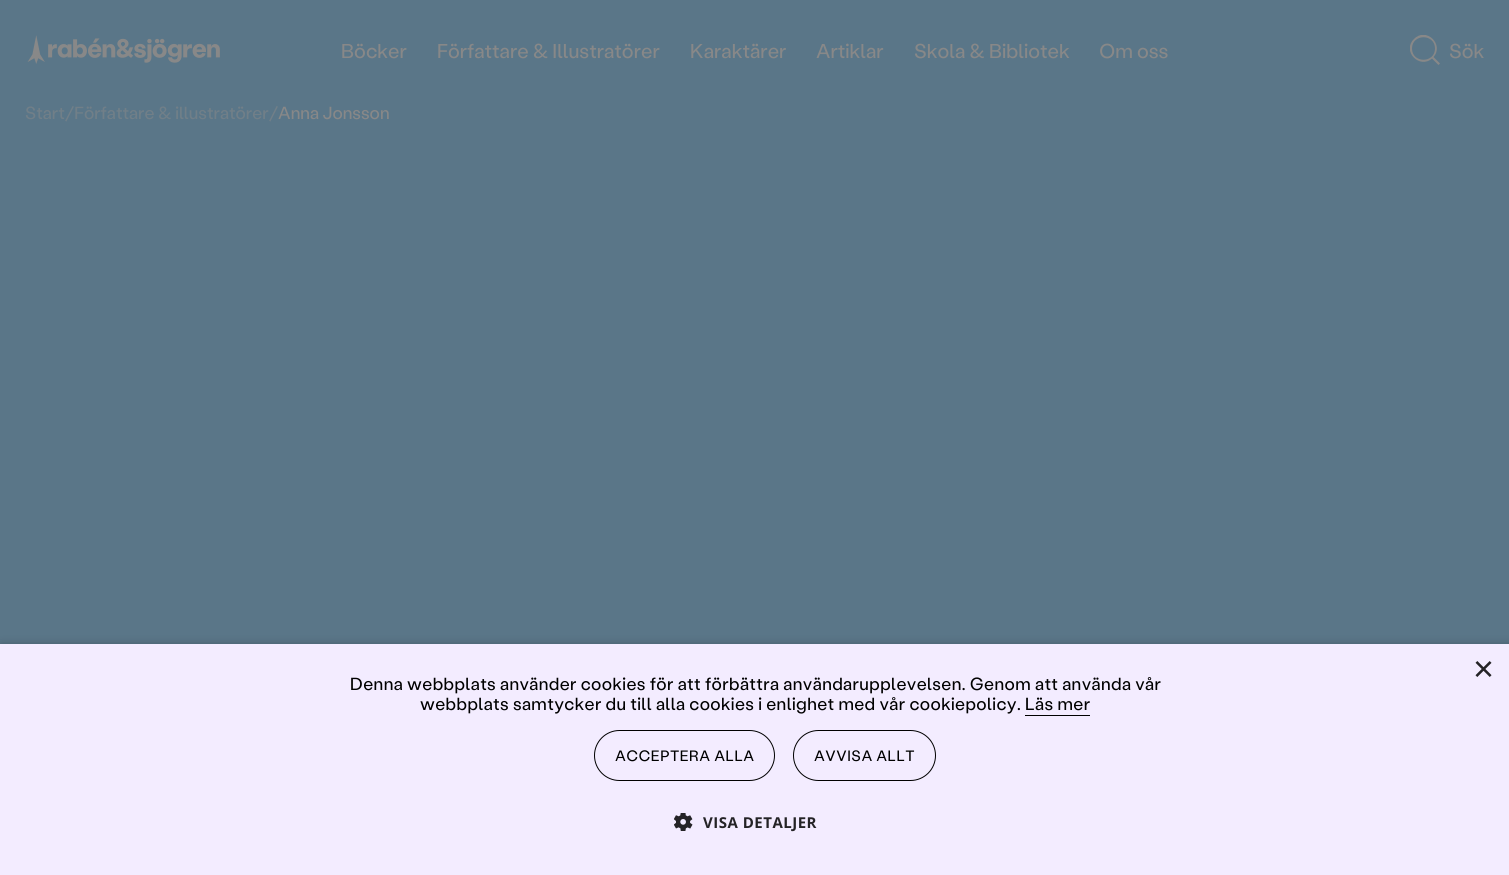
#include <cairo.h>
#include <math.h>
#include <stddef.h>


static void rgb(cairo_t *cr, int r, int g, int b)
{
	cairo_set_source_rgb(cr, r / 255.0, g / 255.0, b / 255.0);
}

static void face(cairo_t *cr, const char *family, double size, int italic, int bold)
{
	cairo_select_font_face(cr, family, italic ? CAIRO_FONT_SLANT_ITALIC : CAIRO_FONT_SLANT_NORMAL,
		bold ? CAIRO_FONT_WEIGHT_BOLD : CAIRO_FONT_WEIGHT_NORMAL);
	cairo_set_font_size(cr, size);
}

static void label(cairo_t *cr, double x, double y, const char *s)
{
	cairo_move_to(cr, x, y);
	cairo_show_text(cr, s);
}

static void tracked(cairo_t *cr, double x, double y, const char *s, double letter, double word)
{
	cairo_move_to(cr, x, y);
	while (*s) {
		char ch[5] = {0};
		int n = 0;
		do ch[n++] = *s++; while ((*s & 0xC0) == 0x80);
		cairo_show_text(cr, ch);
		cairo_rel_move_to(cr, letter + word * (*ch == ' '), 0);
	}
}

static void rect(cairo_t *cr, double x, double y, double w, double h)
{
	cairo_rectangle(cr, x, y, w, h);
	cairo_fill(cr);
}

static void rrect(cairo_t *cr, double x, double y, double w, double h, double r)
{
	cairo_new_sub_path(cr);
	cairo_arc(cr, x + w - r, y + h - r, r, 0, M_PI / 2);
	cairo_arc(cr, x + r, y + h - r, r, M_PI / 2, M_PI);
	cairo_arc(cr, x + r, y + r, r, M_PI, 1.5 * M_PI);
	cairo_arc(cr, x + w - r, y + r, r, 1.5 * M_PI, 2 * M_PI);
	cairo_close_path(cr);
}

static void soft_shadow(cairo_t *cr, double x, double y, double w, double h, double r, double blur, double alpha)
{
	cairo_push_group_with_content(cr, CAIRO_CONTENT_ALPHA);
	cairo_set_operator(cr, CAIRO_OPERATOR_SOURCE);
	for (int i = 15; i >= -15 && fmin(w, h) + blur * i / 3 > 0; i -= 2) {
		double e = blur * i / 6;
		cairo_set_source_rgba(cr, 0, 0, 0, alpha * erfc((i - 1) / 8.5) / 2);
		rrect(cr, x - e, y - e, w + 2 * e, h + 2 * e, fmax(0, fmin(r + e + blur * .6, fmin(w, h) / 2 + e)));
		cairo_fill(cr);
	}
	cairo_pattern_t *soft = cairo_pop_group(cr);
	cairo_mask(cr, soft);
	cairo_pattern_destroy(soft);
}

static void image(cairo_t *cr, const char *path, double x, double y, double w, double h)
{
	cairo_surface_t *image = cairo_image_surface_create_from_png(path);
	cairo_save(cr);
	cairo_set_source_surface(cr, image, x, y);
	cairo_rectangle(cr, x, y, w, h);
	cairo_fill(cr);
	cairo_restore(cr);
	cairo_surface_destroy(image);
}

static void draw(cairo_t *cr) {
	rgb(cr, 90, 118, 136);
	cairo_paint(cr);
	image(cr, "image0.png", 27, 35, 193, 29);
	face(cr, "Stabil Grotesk", 20, 0, 0);
	rgb(cr, 136, 136, 136);
	label(cr, 341, 58, "Böcker");
	label(cr, 437, 58, "Författare & Illustratörer");
	label(cr, 690, 58, "Karaktärer");
	label(cr, 816, 58, "Artiklar");
	label(cr, 914, 58, "Skola & Bibliotek");
	label(cr, 1099, 58, "Om oss");
	cairo_save(cr);
	cairo_rectangle(cr, 1410, 35, 30, 30);
	cairo_clip(cr);
	cairo_set_fill_rule(cr, CAIRO_FILL_RULE_EVEN_ODD);
	cairo_new_path(cr);
	cairo_move_to(cr, 1435, 48.5);
	cairo_curve_to(cr, 1435, 63.5, 1412, 63.5, 1412, 48.5);
	cairo_curve_to(cr, 1412, 33.5, 1435, 33.5, 1435, 48.5);
	cairo_close_path(cr);
	cairo_move_to(cr, 1432, 58.5);
	cairo_curve_to(cr, 1419.5, 69.5, 1401.5, 51, 1414, 39);
	cairo_curve_to(cr, 1426, 26.5, 1444.5, 44.5, 1433.5, 57);
	cairo_line_to(cr, 1440, 63.5);
	cairo_line_to(cr, 1438.5, 65);
	cairo_close_path(cr);
	cairo_fill(cr);
	cairo_restore(cr);
	label(cr, 1449, 58, "Sök");
	face(cr, "Stabil Grotesk", 17.5, 0, 0);
	rgb(cr, 113, 127, 136);
	label(cr, 25, 119, "Start/Författare & illustratörer/");
	rgb(cr, 136, 136, 136);
	label(cr, 278, 119, "Anna Jonsson");
	rgb(cr, 0, 0, 0);
	soft_shadow(cr, 1, 646, 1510, 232, 0, 5, 0.35);
	rgb(cr, 243, 236, 255);
	rect(cr, 0, 644, 1509, 231);
	face(cr, "Liberation Sans", 36, 0, 0);
	rgb(cr, 36, 35, 38);
	label(cr, 1473, 681, "×");
	face(cr, "Stabil Grotesk", 17.5, 0, 0);
	rgb(cr, 0, 0, 0);
	tracked(cr, 350, 690, "Denna webbplats använder cookies för att förbättra användarupplevelsen. Genom att använda vår", 0.38, 0);
	tracked(cr, 420, 710, "webbplats samtycker du till alla cookies i enlighet med vår cookiepolicy. Läs mer", 0.38, 0);
	rect(cr, 1025, 715, 65, 1);
	rrect(cr, 594.5, 730.5, 180, 50, 25);
	cairo_set_line_width(cr, 1);
	cairo_stroke(cr);
	face(cr, "Stabil Grotesk", 15, 0, 0);
	tracked(cr, 615, 761, "ACCEPTERA ALLA", 0.5, 0);
	rrect(cr, 793.5, 730.5, 142, 50, 25);
	cairo_stroke(cr);
	tracked(cr, 814, 761, "AVVISA ALLT", 0.5, 0);
	image(cr, "image1.png", 674, 813, 19, 18);
	face(cr, "Open Sans", 15, 0, 1);
	rgb(cr, 36, 35, 38);
	tracked(cr, 703, 828, "VISA DETALJER", 0.5, 0);
}

int main(void) {
	cairo_surface_t *surface = cairo_image_surface_create(CAIRO_FORMAT_RGB24, 1509, 875);
	cairo_t *cr = cairo_create(surface);
	cairo_font_options_t *options = cairo_font_options_create();
	cairo_font_options_set_hint_metrics(options, CAIRO_HINT_METRICS_OFF);
	cairo_font_options_set_hint_style(options, CAIRO_HINT_STYLE_NONE);
	cairo_set_font_options(cr, options);
	cairo_set_miter_limit(cr, 4);
	draw(cr);
	cairo_surface_write_to_png(surface, "render.png");
	cairo_font_options_destroy(options);
	cairo_destroy(cr);
	cairo_surface_destroy(surface);
	return 0;
}
